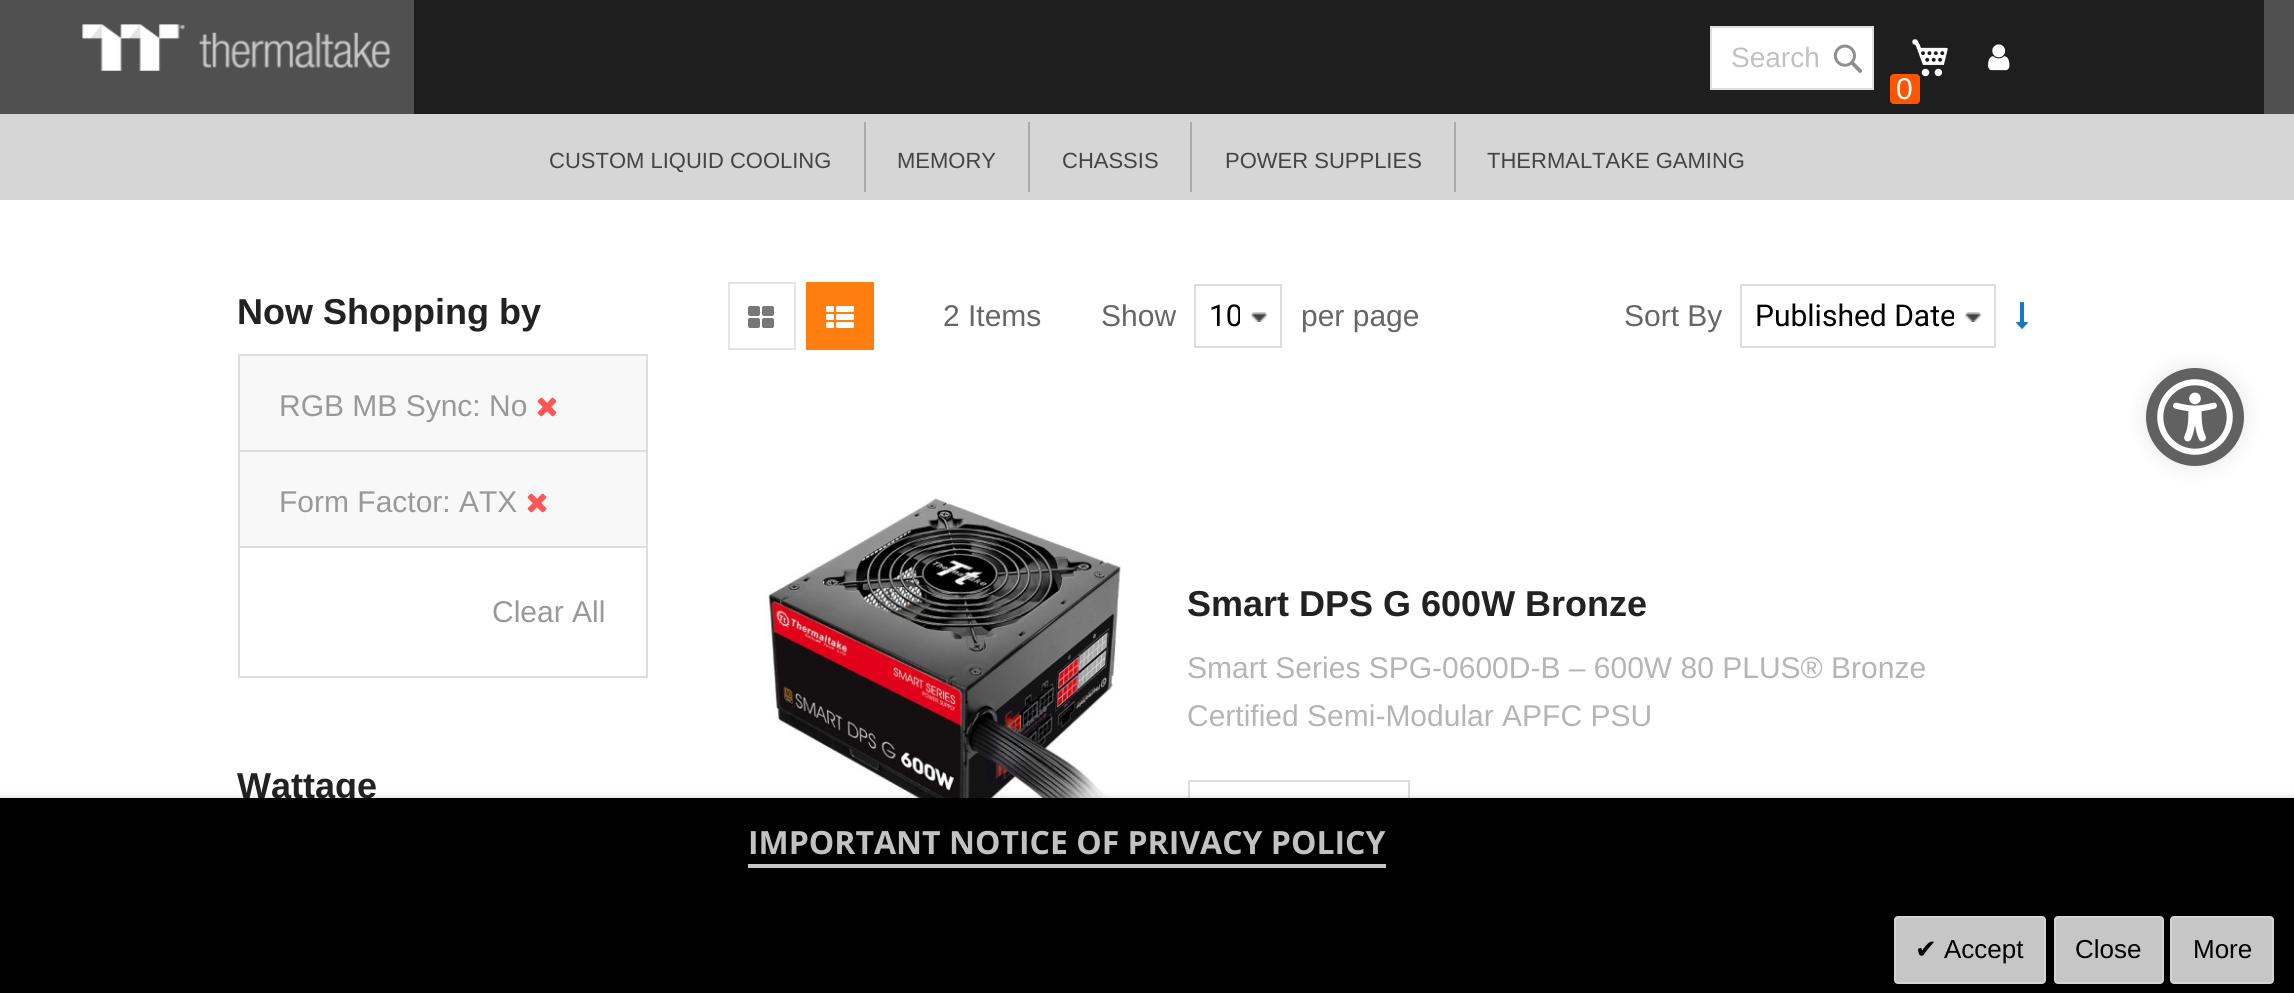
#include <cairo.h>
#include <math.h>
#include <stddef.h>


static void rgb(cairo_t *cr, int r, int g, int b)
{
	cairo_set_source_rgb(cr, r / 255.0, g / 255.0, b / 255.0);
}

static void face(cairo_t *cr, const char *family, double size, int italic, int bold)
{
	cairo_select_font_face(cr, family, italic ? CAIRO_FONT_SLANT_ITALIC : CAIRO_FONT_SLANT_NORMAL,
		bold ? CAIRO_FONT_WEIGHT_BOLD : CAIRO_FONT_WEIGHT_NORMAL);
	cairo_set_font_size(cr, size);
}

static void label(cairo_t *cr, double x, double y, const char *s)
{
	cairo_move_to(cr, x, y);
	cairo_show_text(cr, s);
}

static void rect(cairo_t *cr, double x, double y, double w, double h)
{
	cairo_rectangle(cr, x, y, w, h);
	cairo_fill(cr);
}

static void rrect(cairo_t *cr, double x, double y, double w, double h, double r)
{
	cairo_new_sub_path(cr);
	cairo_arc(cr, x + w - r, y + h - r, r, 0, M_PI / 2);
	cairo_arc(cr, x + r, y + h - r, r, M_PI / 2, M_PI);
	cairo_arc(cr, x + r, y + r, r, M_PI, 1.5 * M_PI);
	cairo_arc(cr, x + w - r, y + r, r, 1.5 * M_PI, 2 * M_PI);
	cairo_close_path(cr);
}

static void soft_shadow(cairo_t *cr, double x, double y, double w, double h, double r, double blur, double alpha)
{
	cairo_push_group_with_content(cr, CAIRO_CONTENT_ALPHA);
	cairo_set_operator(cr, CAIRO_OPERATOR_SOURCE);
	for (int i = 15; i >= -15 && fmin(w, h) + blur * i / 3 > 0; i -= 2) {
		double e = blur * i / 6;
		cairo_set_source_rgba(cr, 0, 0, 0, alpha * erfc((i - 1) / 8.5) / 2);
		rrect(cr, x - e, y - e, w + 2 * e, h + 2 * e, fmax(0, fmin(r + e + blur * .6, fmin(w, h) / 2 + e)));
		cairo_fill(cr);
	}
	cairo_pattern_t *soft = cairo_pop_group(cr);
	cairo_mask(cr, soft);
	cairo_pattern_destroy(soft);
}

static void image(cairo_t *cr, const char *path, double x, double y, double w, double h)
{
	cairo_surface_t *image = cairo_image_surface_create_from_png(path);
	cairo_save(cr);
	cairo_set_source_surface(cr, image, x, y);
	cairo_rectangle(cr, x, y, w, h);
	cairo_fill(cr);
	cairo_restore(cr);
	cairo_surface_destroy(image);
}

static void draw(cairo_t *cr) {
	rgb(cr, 255, 255, 255);
	cairo_paint(cr);
	rgb(cr, 80, 80, 80);
	rect(cr, 0, 0, 2294, 114);
	image(cr, "image0.png", 82, 24, 309, 47);
	rgb(cr, 30, 30, 30);
	rect(cr, 414, 0, 1850, 114);
	rgb(cr, 255, 255, 255);
	cairo_rectangle(cr, 1711, 27, 162, 62);
	cairo_fill_preserve(cr);
	rgb(cr, 221, 221, 221);
	cairo_stroke(cr);
	face(cr, "Liberation Sans", 28, 0, 0);
	rgb(cr, 194, 194, 194);
	label(cr, 1731, 67, "Search");
	image(cr, "image1.png", 1833, 44, 30, 29);
	image(cr, "image2.png", 1988, 44, 22, 27);
	image(cr, "image3.png", 1912, 39, 36, 38);
	rgb(cr, 255, 85, 1);
	rrect(cr, 1890, 74, 30, 30, 4);
	cairo_fill(cr);
	face(cr, "Liberation Sans", 30, 0, 0);
	rgb(cr, 255, 255, 255);
	label(cr, 1896, 99, "0");
	rgb(cr, 214, 214, 214);
	rect(cr, 0, 114, 2294, 86);
	face(cr, "Liberation Sans", 22, 0, 0);
	rgb(cr, 68, 68, 68);
	label(cr, 549, 168, "CUSTOM LIQUID COOLING");
	rgb(cr, 170, 170, 170);
	rect(cr, 864, 122, 2, 70);
	rgb(cr, 68, 68, 68);
	label(cr, 897, 168, "MEMORY");
	rgb(cr, 170, 170, 170);
	rect(cr, 1028, 122, 2, 70);
	rgb(cr, 68, 68, 68);
	label(cr, 1062, 168, "CHASSIS");
	rgb(cr, 170, 170, 170);
	rect(cr, 1190, 122, 2, 70);
	rgb(cr, 68, 68, 68);
	label(cr, 1225, 168, "POWER SUPPLIES");
	rgb(cr, 170, 170, 170);
	rect(cr, 1454, 122, 2, 70);
	rgb(cr, 68, 68, 68);
	label(cr, 1487, 168, "THERMALTAKE GAMING");
	face(cr, "Liberation Sans", 36, 0, 1);
	rgb(cr, 34, 34, 34);
	label(cr, 237, 324, "Now Shopping by");
	rgb(cr, 221, 221, 221);
	rect(cr, 238, 354, 410, 2);
	rect(cr, 646, 354, 2, 192);
	rect(cr, 238, 354, 2, 192);
	rgb(cr, 248, 248, 248);
	rect(cr, 240, 356, 406, 94);
	rgb(cr, 221, 221, 221);
	rect(cr, 240, 450, 406, 2);
	face(cr, "Liberation Sans", 30, 0, 0);
	rgb(cr, 153, 153, 153);
	label(cr, 279, 416, "RGB MB Sync: No");
	image(cr, "image4.png", 537, 397, 20, 20);
	rgb(cr, 248, 248, 248);
	rect(cr, 240, 452, 406, 94);
	rgb(cr, 153, 153, 153);
	label(cr, 279, 512, "Form Factor: ATX");
	image(cr, "image4.png", 527, 493, 20, 20);
	cairo_rectangle(cr, 239, 547, 408, 130);
	rgb(cr, 221, 221, 221);
	cairo_stroke(cr);
	rgb(cr, 153, 153, 153);
	label(cr, 492, 622, "Clear All");
	face(cr, "Liberation Sans", 36, 0, 1);
	rgb(cr, 34, 34, 34);
	label(cr, 237, 798, "Wattage");
	cairo_rectangle(cr, 729, 283, 66, 66);
	rgb(cr, 229, 229, 229);
	cairo_stroke(cr);
	image(cr, "image5.png", 748, 306, 26, 22);
	rgb(cr, 255, 126, 16);
	rect(cr, 806, 282, 68, 68);
	image(cr, "image6.png", 826, 306, 28, 22);
	face(cr, "Liberation Sans", 30, 0, 0);
	rgb(cr, 102, 102, 102);
	label(cr, 943, 326, "2 Items");
	label(cr, 1101, 326, "Show");
	image(cr, "image7.png", 1251, 312, 17, 10);
	cairo_rectangle(cr, 1195, 285, 86, 62);
	rgb(cr, 221, 221, 221);
	cairo_stroke(cr);
	cairo_save(cr);
	cairo_rectangle(cr, 1206, 286, 34, 60);
	cairo_clip(cr);
	face(cr, "Roboto", 30, 0, 0);
	rgb(cr, 0, 0, 0);
	label(cr, 1209, 326, "10");
	cairo_restore(cr);
	rgb(cr, 102, 102, 102);
	label(cr, 1301, 326, "per page");
	label(cr, 1624, 326, "Sort By");
	image(cr, "image7.png", 1965, 312, 17, 10);
	cairo_rectangle(cr, 1741, 285, 254, 62);
	rgb(cr, 221, 221, 221);
	cairo_stroke(cr);
	cairo_save(cr);
	cairo_rectangle(cr, 1752, 286, 202, 60);
	cairo_clip(cr);
	face(cr, "Roboto", 30, 0, 0);
	rgb(cr, 0, 0, 0);
	label(cr, 1755, 326, "Published Date");
	cairo_restore(cr);
	image(cr, "image8.png", 2016, 302, 12, 27);
	image(cr, "image9.png", 764, 498, 357, 300);
	face(cr, "Liberation Sans", 36, 0, 1);
	rgb(cr, 34, 34, 34);
	label(cr, 1187, 616, "Smart DPS G 600W Bronze");
	face(cr, "Liberation Sans", 30, 0, 0);
	rgb(cr, 181, 181, 181);
	label(cr, 1187, 678, "Smart Series SPG-0600D-B – 600W 80 PLUS® Bronze");
	label(cr, 1187, 726, "Certified Semi-Modular APFC PSU");
	cairo_rectangle(cr, 1189, 781, 220, 58);
	rgb(cr, 221, 221, 221);
	cairo_stroke(cr);
	rgb(cr, 0, 0, 0);
	soft_shadow(cr, 0, 802, 2294, 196, 0, 5, 0.47);
	rgb(cr, 0, 0, 0);
	rect(cr, 0, 798, 2294, 195);
	face(cr, "Open Sans", 32, 0, 1);
	rgb(cr, 194, 194, 194);
	label(cr, 748, 854, "IMPORTANT NOTICE OF PRIVACY POLICY");
	rgb(cr, 198, 198, 198);
	rect(cr, 748, 864, 638, 4);
	rrect(cr, 1895, 917, 150, 66, 3);
	cairo_fill_preserve(cr);
	rgb(cr, 212, 212, 212);
	cairo_stroke(cr);
	face(cr, "DejaVu Sans", 26, 0, 0);
	rgb(cr, 0, 0, 0);
	label(cr, 1915, 958, "✔");
	face(cr, "Liberation Sans", 26, 0, 0);
	label(cr, 1944, 958, "Accept");
	rgb(cr, 198, 198, 198);
	rrect(cr, 2055, 917, 108, 66, 3);
	cairo_fill_preserve(cr);
	rgb(cr, 212, 212, 212);
	cairo_stroke(cr);
	rgb(cr, 0, 0, 0);
	label(cr, 2075, 958, "Close");
	rgb(cr, 198, 198, 198);
	rrect(cr, 2171, 917, 102, 66, 3);
	cairo_fill_preserve(cr);
	rgb(cr, 212, 212, 212);
	cairo_stroke(cr);
	rgb(cr, 0, 0, 0);
	label(cr, 2193, 958, "More");
	rgb(cr, 0, 0, 0);
	soft_shadow(cr, 2146, 368, 98, 98, 49, 10, 0.1);
	rgb(cr, 97, 97, 97);
	cairo_arc(cr, 2195, 417, 49, 0, 2 * M_PI);
	cairo_fill(cr);
	image(cr, "image10.png", 2157, 379, 76, 76);
}

int main(void) {
	cairo_surface_t *surface = cairo_image_surface_create(CAIRO_FORMAT_RGB24, 2294, 993);
	cairo_t *cr = cairo_create(surface);
	cairo_font_options_t *options = cairo_font_options_create();
	cairo_font_options_set_hint_metrics(options, CAIRO_HINT_METRICS_OFF);
	cairo_font_options_set_hint_style(options, CAIRO_HINT_STYLE_NONE);
	cairo_set_font_options(cr, options);
	cairo_set_miter_limit(cr, 4);
	draw(cr);
	cairo_surface_write_to_png(surface, "render.png");
	cairo_font_options_destroy(options);
	cairo_destroy(cr);
	cairo_surface_destroy(surface);
	return 0;
}
